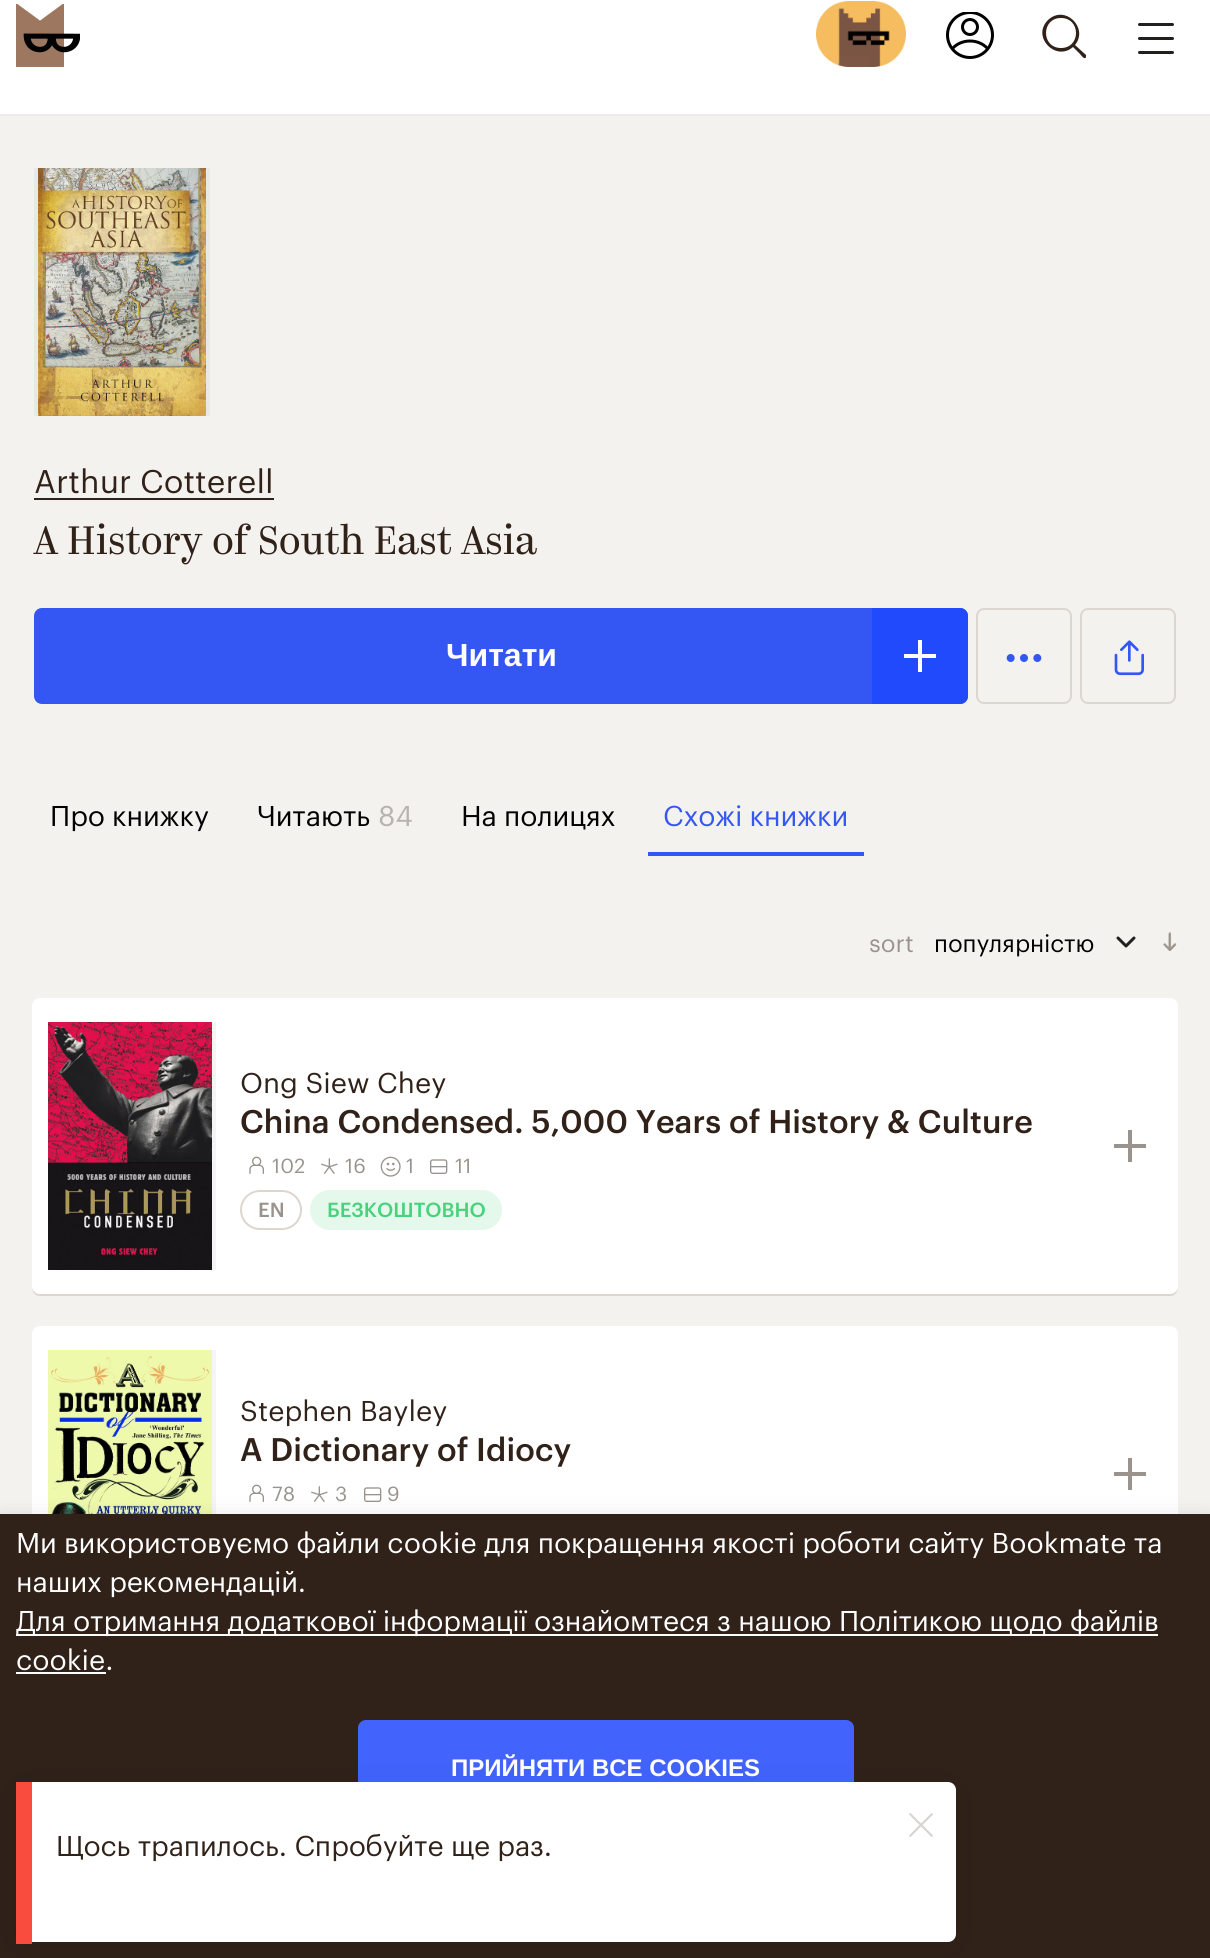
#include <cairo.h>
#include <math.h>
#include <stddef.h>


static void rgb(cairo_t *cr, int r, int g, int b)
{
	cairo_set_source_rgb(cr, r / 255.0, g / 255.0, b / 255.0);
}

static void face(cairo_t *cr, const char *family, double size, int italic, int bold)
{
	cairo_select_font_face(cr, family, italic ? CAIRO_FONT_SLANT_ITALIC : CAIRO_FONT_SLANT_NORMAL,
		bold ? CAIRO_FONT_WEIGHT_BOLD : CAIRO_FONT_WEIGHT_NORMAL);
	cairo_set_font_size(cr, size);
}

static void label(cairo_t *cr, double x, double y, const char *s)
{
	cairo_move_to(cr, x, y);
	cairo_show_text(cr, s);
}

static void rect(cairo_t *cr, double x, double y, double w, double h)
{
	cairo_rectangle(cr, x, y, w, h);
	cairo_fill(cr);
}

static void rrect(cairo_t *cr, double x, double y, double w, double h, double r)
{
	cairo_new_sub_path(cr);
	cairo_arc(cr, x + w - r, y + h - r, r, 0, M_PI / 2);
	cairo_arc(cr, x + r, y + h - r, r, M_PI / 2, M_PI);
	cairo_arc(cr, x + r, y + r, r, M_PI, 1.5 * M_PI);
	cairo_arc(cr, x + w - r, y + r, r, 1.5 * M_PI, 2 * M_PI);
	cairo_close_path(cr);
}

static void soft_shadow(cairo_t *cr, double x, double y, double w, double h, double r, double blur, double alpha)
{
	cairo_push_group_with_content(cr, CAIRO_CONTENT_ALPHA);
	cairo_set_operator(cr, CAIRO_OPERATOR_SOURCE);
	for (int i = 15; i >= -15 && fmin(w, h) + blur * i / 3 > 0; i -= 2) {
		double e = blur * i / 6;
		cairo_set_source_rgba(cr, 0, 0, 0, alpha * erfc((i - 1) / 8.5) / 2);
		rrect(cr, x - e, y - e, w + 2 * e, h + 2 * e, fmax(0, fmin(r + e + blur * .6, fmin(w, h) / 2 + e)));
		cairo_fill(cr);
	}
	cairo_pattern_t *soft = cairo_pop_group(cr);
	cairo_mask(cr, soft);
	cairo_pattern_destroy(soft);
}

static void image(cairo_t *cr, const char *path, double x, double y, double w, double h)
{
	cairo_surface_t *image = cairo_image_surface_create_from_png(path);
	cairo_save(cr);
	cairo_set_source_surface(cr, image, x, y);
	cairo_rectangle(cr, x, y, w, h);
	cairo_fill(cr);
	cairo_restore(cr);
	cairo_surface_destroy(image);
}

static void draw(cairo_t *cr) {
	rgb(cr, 244, 242, 239);
	cairo_paint(cr);
	rgb(cr, 255, 255, 255);
	rect(cr, 0, 0, 1210, 114);
	rgb(cr, 238, 235, 231);
	rect(cr, 0, 114, 1210, 2);
	image(cr, "image0.png", 16, 4, 64, 63);
	image(cr, "image1.png", 816, 1, 90, 66);
	cairo_save(cr);
	cairo_rectangle(cr, 946, 12, 48, 48);
	cairo_clip(cr);
	cairo_arc(cr, 970, 35, 22.5, 0, 2 * M_PI);
	rgb(cr, 0, 0, 0);
	cairo_set_line_width(cr, 3);
	cairo_stroke(cr);
	cairo_restore(cr);
	cairo_arc(cr, 970, 27, 7.5, 0, 2 * M_PI);
	rgb(cr, 0, 0, 0);
	cairo_set_line_width(cr, 3);
	cairo_stroke(cr);
	cairo_new_path(cr);
	cairo_move_to(cr, 952.5, 48.5);
	cairo_curve_to(cr, 961.5, 38.5, 978.5, 38.5, 987.5, 48.5);
	cairo_stroke(cr);
	rgb(cr, 48, 33, 25);
	cairo_new_path(cr);
	cairo_move_to(cr, 1086, 55);
	cairo_line_to(cr, 1075, 45);
	cairo_curve_to(cr, 1089, 28, 1065, 4, 1048, 20);
	cairo_curve_to(cr, 1031, 37, 1056, 62, 1073, 47);
	cairo_line_to(cr, 1080, 54);
	cairo_curve_to(cr, 1080, 54, 1085, 61, 1086, 57);
	cairo_close_path(cr);
	cairo_move_to(cr, 1061, 48);
	cairo_curve_to(cr, 1041, 48, 1041, 18, 1061, 18);
	cairo_curve_to(cr, 1081, 18, 1081, 48, 1061, 48);
	cairo_close_path(cr);
	cairo_fill(cr);
	rgb(cr, 34, 32, 31);
	rrect(cr, 1138, 23, 36, 3, 1.5);
	cairo_fill(cr);
	rrect(cr, 1138, 37, 36, 3, 1.5);
	cairo_fill(cr);
	rrect(cr, 1138, 51, 36, 3, 1.5);
	cairo_fill(cr);
	image(cr, "image2.png", 38, 168, 168, 248);
	cairo_save(cr);
	cairo_rectangle(cr, 34, 168, 176, 248);
	cairo_clip(cr);
	cairo_rectangle(cr, 36, 166, 172, 252);
	rgb(cr, 234, 232, 229);
	cairo_set_line_width(cr, 4);
	cairo_stroke(cr);
	cairo_restore(cr);
	face(cr, "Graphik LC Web", 32, 0, 0);
	rgb(cr, 48, 33, 25);
	label(cr, 34, 493, "Arthur Cotterell");
	rect(cr, 34, 498, 240, 2);
	face(cr, "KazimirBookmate", 40, 0, 0);
	label(cr, 34, 554, "A History of South East Asia");
	rgb(cr, 52, 86, 243);
	rrect(cr, 34, 608, 934, 96, 8);
	cairo_fill(cr);
	face(cr, "Liberation Sans", 32, 0, 1);
	rgb(cr, 255, 255, 255);
	label(cr, 446, 666, "Читати");
	rgb(cr, 34, 74, 253);
	cairo_new_path(cr);
	cairo_move_to(cr, 872, 608);
	cairo_line_to(cr, 960, 608);
	cairo_curve_to(cr, 964.5, 608, 968, 611.5, 968, 616);
	cairo_line_to(cr, 968, 696);
	cairo_curve_to(cr, 968, 700.5, 964.5, 704, 960, 704);
	cairo_line_to(cr, 872, 704);
	cairo_close_path(cr);
	cairo_fill(cr);
	rgb(cr, 255, 255, 255);
	rect(cr, 904, 654, 32, 4);
	rect(cr, 918, 640, 4, 32);
	rrect(cr, 977, 609, 94, 94, 7);
	rgb(cr, 221, 214, 207);
	cairo_set_line_width(cr, 2);
	cairo_stroke(cr);
	image(cr, "image3.png", 1006, 654, 36, 8);
	rrect(cr, 1081, 609, 94, 94, 7);
	cairo_stroke(cr);
	image(cr, "image4.png", 1114, 640, 30, 36);
	face(cr, "Graphik LC Web", 28, 0, 0);
	rgb(cr, 0, 0, 0);
	label(cr, 50, 826, "Про книжку");
	label(cr, 257, 826, "Читають");
	rgb(cr, 184, 179, 175);
	label(cr, 378, 826, "84");
	rgb(cr, 0, 0, 0);
	label(cr, 461, 826, "На полицях");
	rgb(cr, 52, 86, 243);
	rect(cr, 648, 852, 216, 4);
	label(cr, 663, 826, "Схожі книжки");
	face(cr, "Graphik LC Web", 24, 0, 0);
	rgb(cr, 154, 147, 141);
	label(cr, 869, 952, "sort");
	rgb(cr, 0, 0, 0);
	label(cr, 934, 952, "популярністю");
	cairo_new_path(cr);
	cairo_move_to(cr, 1134, 938);
	cairo_line_to(cr, 1126, 946);
	cairo_line_to(cr, 1118, 938);
	rgb(cr, 34, 32, 31);
	cairo_set_line_width(cr, 3);
	cairo_set_line_cap(cr, CAIRO_LINE_CAP_ROUND);
	cairo_set_line_join(cr, CAIRO_LINE_JOIN_ROUND);
	cairo_stroke(cr);
	image(cr, "image5.png", 1163, 932, 14, 19);
	rgb(cr, 221, 214, 207);
	cairo_new_path(cr);
	cairo_move_to(cr, 32, 1286);
	cairo_curve_to(cr, 32, 1291, 34, 1296, 40, 1296);
	cairo_line_to(cr, 1170, 1296);
	cairo_curve_to(cr, 1176, 1296, 1178, 1291, 1178, 1286);
	cairo_curve_to(cr, 1178, 1290, 1174, 1294, 1170, 1294);
	cairo_line_to(cr, 40, 1294);
	cairo_curve_to(cr, 36, 1294, 32, 1290, 32, 1286);
	cairo_close_path(cr);
	cairo_fill(cr);
	rgb(cr, 255, 255, 255);
	rrect(cr, 32, 998, 1146, 296, 8);
	cairo_fill(cr);
	image(cr, "image6.png", 48, 1022, 164, 248);
	cairo_save(cr);
	cairo_rectangle(cr, 48, 1022, 176, 248);
	cairo_clip(cr);
	cairo_rectangle(cr, 46, 1020, 168, 252);
	rgb(cr, 245, 245, 245);
	cairo_set_line_width(cr, 4);
	cairo_set_line_cap(cr, CAIRO_LINE_CAP_BUTT);
	cairo_set_line_join(cr, CAIRO_LINE_JOIN_MITER);
	cairo_stroke(cr);
	cairo_restore(cr);
	face(cr, "Graphik LC Web", 28, 0, 0);
	rgb(cr, 48, 33, 25);
	label(cr, 240, 1093, "Ong Siew Chey");
	face(cr, "Graphik LC Web Medium", 32, 0, 0);
	label(cr, 240, 1133, "China Condensed. 5,000 Years of History & Culture");
	image(cr, "image7.png", 249, 1156, 15, 18);
	face(cr, "Graphik LC Web", 20, 0, 0);
	rgb(cr, 154, 147, 141);
	label(cr, 272, 1173, "102");
	image(cr, "image8.png", 321, 1158, 17, 16);
	label(cr, 345, 1173, "16");
	image(cr, "image9.png", 380, 1156, 21, 21);
	label(cr, 406, 1173, "1");
	image(cr, "image10.png", 430, 1159, 18, 15);
	label(cr, 455, 1173, "11");
	rrect(cr, 241, 1191, 60, 38, 19);
	rgb(cr, 221, 214, 207);
	cairo_set_line_width(cr, 2);
	cairo_set_line_cap(cr, CAIRO_LINE_CAP_BUTT);
	cairo_set_line_join(cr, CAIRO_LINE_JOIN_MITER);
	cairo_stroke(cr);
	face(cr, "Graphik LC Web Medium", 20, 0, 0);
	rgb(cr, 154, 147, 141);
	label(cr, 258, 1217, "EN");
	rgb(cr, 228, 248, 235);
	rrect(cr, 310, 1190, 192, 40, 20);
	cairo_fill(cr);
	rgb(cr, 72, 210, 124);
	label(cr, 327, 1217, "БЕЗКОШТОВНО");
	rgb(cr, 154, 147, 141);
	rect(cr, 1114, 1144, 32, 4);
	rect(cr, 1128, 1130, 4, 32);
	rgb(cr, 255, 255, 255);
	rrect(cr, 32, 1326, 1146, 296, 8);
	cairo_fill(cr);
	image(cr, "image11.png", 48, 1350, 164, 164);
	cairo_save(cr);
	cairo_rectangle(cr, 48, 1350, 176, 248);
	cairo_clip(cr);
	cairo_rectangle(cr, 46, 1348, 168, 252);
	rgb(cr, 245, 245, 245);
	cairo_set_line_width(cr, 4);
	cairo_stroke(cr);
	cairo_restore(cr);
	face(cr, "Graphik LC Web", 28, 0, 0);
	rgb(cr, 48, 33, 25);
	label(cr, 240, 1421, "Stephen Bayley");
	face(cr, "Graphik LC Web Medium", 32, 0, 0);
	label(cr, 240, 1461, "A Dictionary of Idiocy");
	image(cr, "image7.png", 249, 1484, 15, 18);
	face(cr, "Graphik LC Web", 20, 0, 0);
	rgb(cr, 154, 147, 141);
	label(cr, 272, 1501, "78");
	image(cr, "image8.png", 311, 1486, 17, 16);
	label(cr, 335, 1501, "3");
	image(cr, "image10.png", 364, 1487, 18, 15);
	label(cr, 387, 1501, "9");
	rect(cr, 1114, 1472, 32, 4);
	rect(cr, 1128, 1458, 4, 32);
	rgb(cr, 0, 0, 0);
	soft_shadow(cr, 0, 1516, 1210, 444, 0, 10, 0.1);
	rgb(cr, 48, 33, 25);
	rect(cr, 0, 1514, 1210, 444);
	face(cr, "Graphik LC Web", 28, 0, 0);
	rgb(cr, 255, 255, 255);
	label(cr, 16, 1553, "Ми використовуємо файли cookie для покращення якості роботи сайту Bookmate та");
	label(cr, 16, 1592, "наших рекомендацій.");
	rect(cr, 16, 1634, 1142, 2);
	label(cr, 16, 1631, "Для отримання додаткової інформації ознайомтеся з нашою Політикою щодо файлів");
	label(cr, 16, 1670, "cookie.");
	rect(cr, 16, 1672, 90, 2);
	rgb(cr, 66, 100, 253);
	rrect(cr, 358, 1720, 496, 96, 8);
	cairo_fill(cr);
	face(cr, "Liberation Sans", 24, 0, 1);
	rgb(cr, 255, 255, 255);
	label(cr, 451, 1776, "ПРИЙНЯТИ ВСЕ COOKIES");
	rgb(cr, 0, 0, 0);
	soft_shadow(cr, 16, 1786, 940, 160, 8, 20, 0.07);
	rgb(cr, 255, 255, 255);
	rrect(cr, 16, 1782, 940, 160, 8);
	cairo_fill(cr);
	rgb(cr, 250, 76, 62);
	rect(cr, 16, 1782, 16, 162);
	image(cr, "image12.png", 909, 1813, 24, 24);
	face(cr, "Graphik LC Web", 28, 0, 0);
	rgb(cr, 48, 33, 25);
	label(cr, 56, 1856, "Щось трапилось. Спробуйте ще раз.");
}

int main(void) {
	cairo_surface_t *surface = cairo_image_surface_create(CAIRO_FORMAT_RGB24, 1210, 1958);
	cairo_t *cr = cairo_create(surface);
	cairo_font_options_t *options = cairo_font_options_create();
	cairo_font_options_set_hint_metrics(options, CAIRO_HINT_METRICS_OFF);
	cairo_font_options_set_hint_style(options, CAIRO_HINT_STYLE_NONE);
	cairo_set_font_options(cr, options);
	cairo_set_miter_limit(cr, 4);
	draw(cr);
	cairo_surface_write_to_png(surface, "render.png");
	cairo_font_options_destroy(options);
	cairo_destroy(cr);
	cairo_surface_destroy(surface);
	return 0;
}
